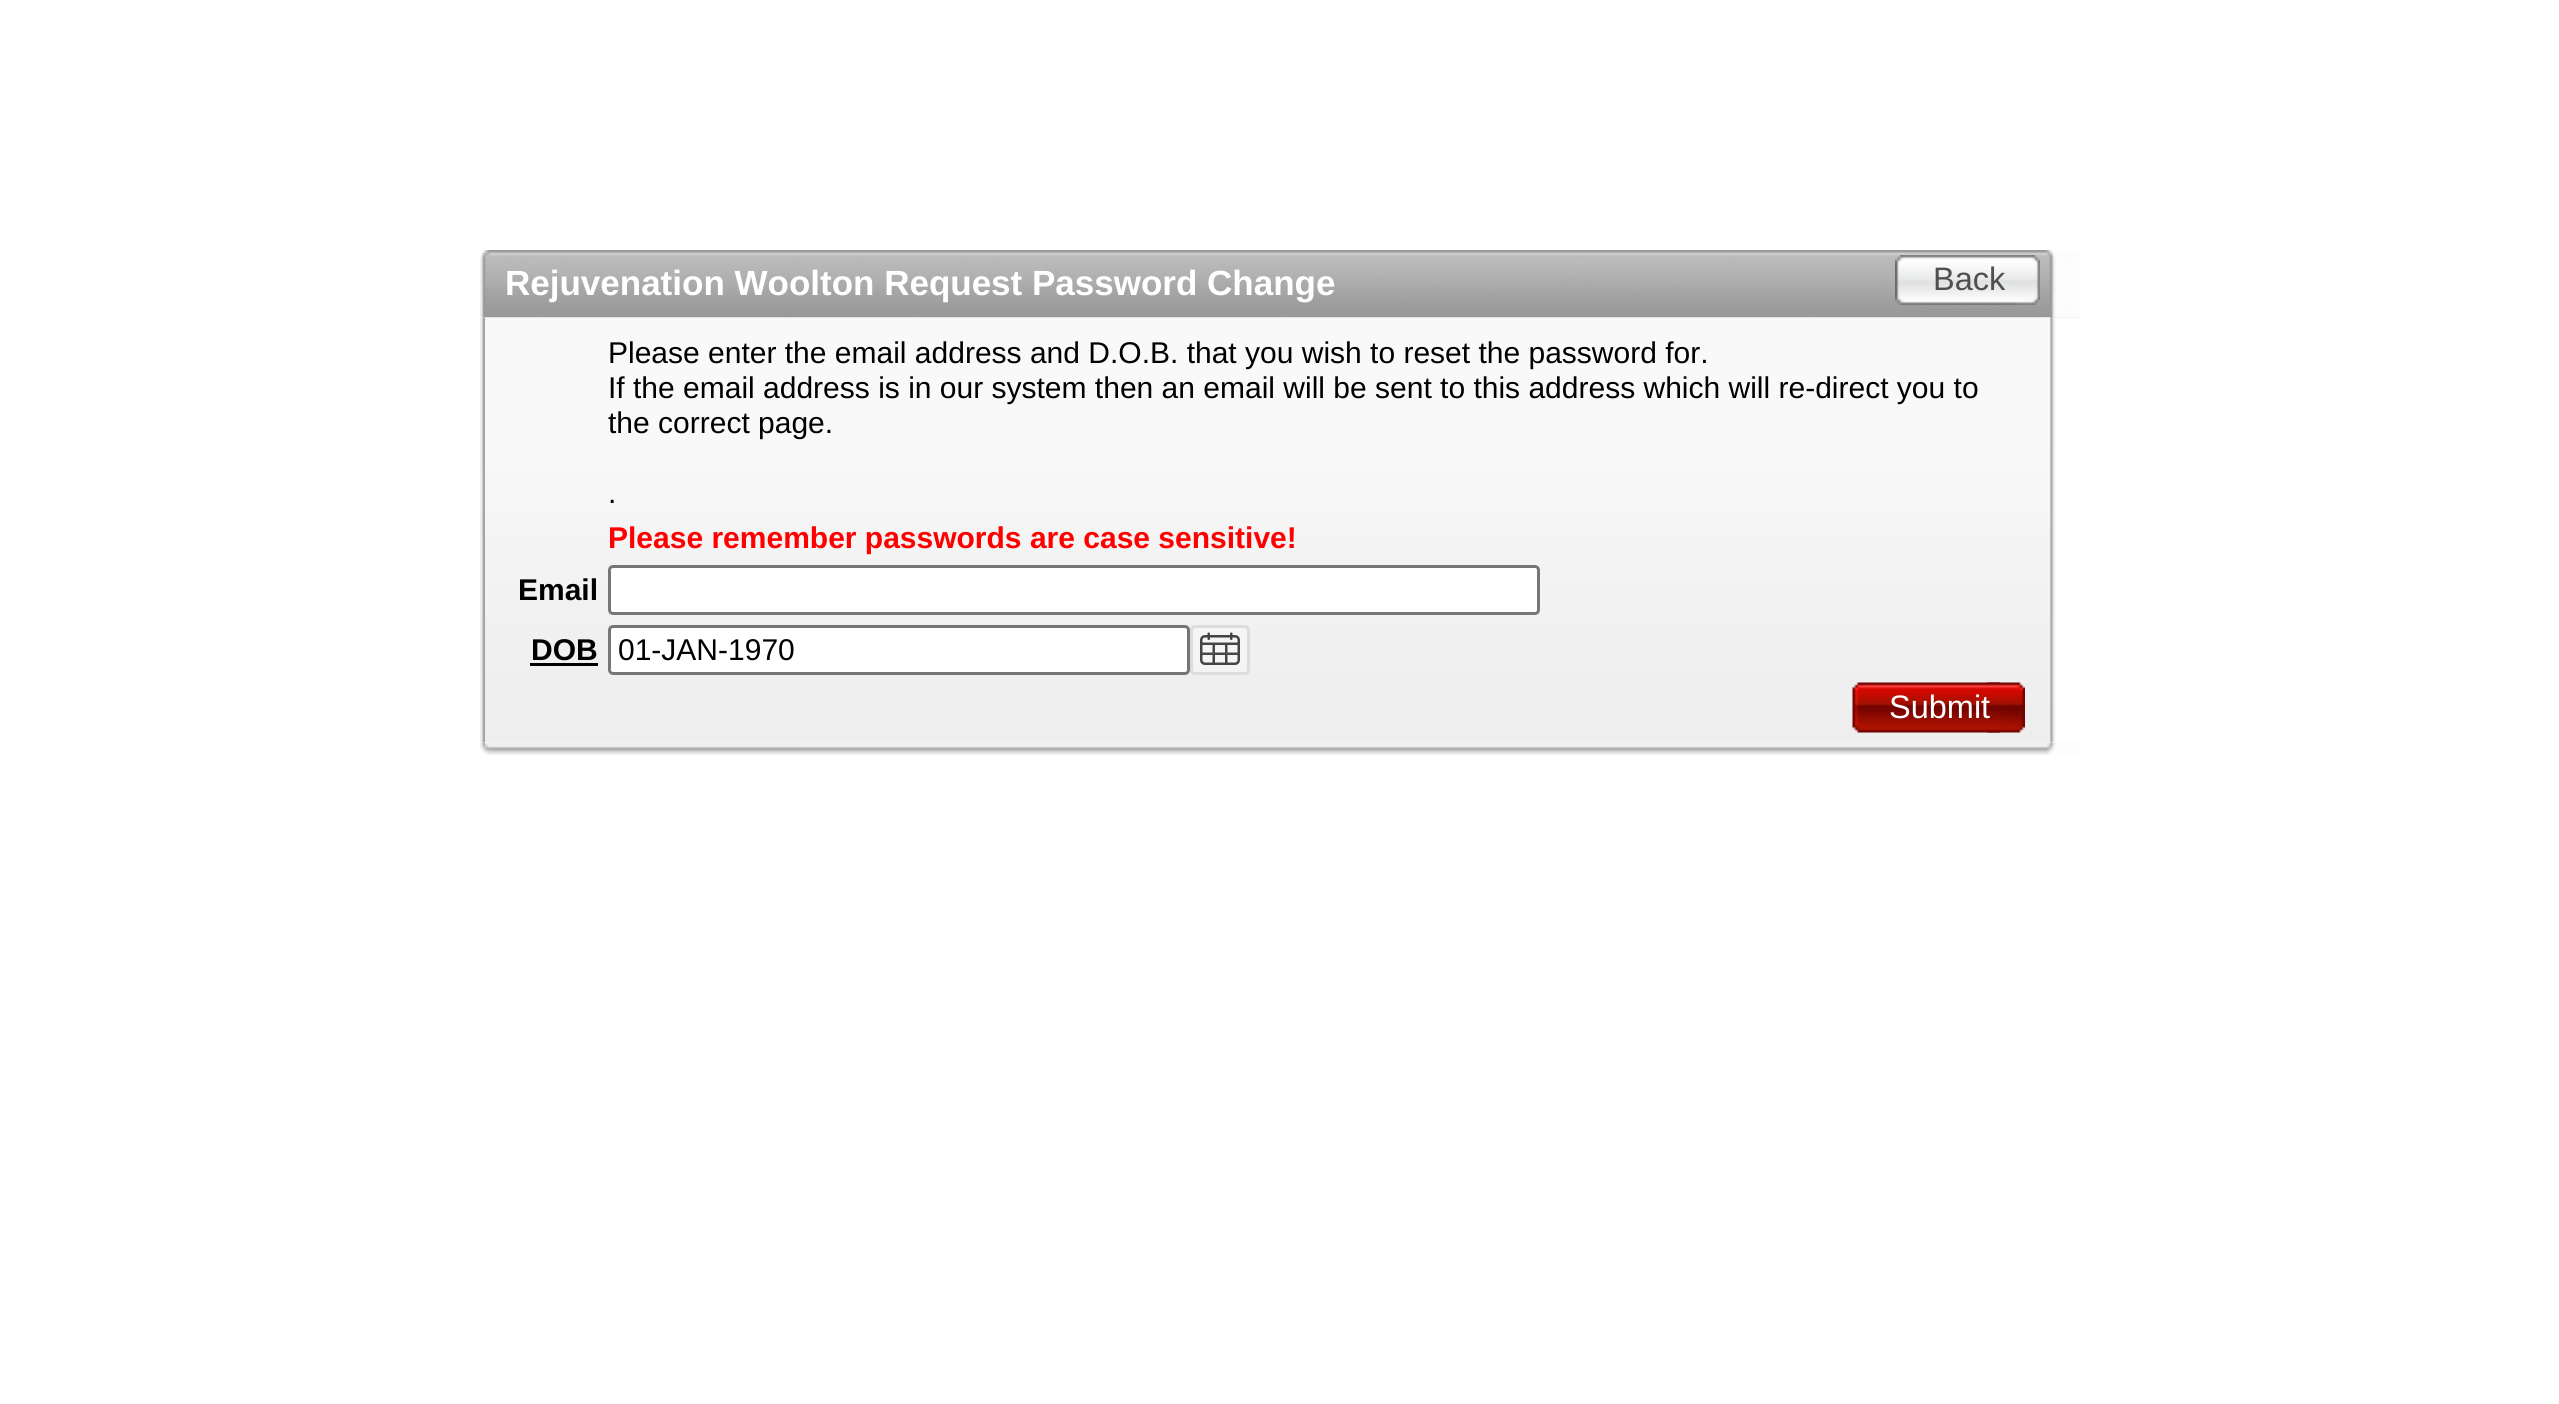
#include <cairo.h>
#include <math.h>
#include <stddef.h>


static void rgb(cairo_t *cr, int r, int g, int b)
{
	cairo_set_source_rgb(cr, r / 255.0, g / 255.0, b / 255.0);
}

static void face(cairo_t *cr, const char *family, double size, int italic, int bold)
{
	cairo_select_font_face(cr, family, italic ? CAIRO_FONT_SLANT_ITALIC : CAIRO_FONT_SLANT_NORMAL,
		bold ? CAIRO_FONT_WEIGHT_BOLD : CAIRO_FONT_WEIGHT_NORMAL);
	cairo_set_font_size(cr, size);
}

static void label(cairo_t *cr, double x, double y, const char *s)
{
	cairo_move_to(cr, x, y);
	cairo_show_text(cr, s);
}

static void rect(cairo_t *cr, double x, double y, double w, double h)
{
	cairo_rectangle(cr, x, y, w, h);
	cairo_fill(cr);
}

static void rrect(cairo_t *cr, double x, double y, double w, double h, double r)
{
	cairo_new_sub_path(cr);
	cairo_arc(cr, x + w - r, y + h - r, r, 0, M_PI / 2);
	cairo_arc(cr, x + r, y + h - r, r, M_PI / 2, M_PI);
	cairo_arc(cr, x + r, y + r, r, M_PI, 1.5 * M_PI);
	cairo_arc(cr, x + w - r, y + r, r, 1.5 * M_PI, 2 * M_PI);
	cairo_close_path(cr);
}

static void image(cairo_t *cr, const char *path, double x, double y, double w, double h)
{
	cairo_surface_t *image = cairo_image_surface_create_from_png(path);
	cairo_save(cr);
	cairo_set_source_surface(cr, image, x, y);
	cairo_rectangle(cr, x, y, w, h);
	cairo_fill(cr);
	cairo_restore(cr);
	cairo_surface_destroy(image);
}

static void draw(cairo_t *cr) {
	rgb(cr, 255, 255, 255);
	cairo_paint(cr);
	image(cr, "image0.png", 480, 250, 1600, 68);
	image(cr, "image1.png", 2045, 250, 35, 68);
	face(cr, "Liberation Sans", 35, 0, 1);
	rgb(cr, 255, 255, 255);
	label(cr, 505, 295, "Rejuvenation Woolton Request Password Change");
	image(cr, "image2.png", 2015, 255, 25, 50);
	image(cr, "image3.png", 1895, 255, 120, 50);
	face(cr, "Liberation Sans", 32.5, 0, 0);
	rgb(cr, 79, 79, 79);
	label(cr, 1933, 290, "Back");
	image(cr, "image4.png", 480, 317, 5, 426);
	image(cr, "image5.png", 2045, 317, 35, 426);
	image(cr, "image6.png", 485, 317, 1565, 426);
	face(cr, "Liberation Sans", 30, 0, 0);
	rgb(cr, 0, 0, 0);
	label(cr, 608, 363, "Please enter the email address and D.O.B. that you wish to reset the password for.");
	label(cr, 608, 398, "If the email address is in our system then an email will be sent to this address which will re-direct you to");
	label(cr, 608, 433, "the correct page.");
	label(cr, 608, 503, ".");
	face(cr, "Liberation Sans", 30, 0, 1);
	rgb(cr, 255, 0, 0);
	label(cr, 608, 548, "Please remember passwords are case sensitive!");
	rgb(cr, 0, 0, 0);
	label(cr, 518, 600, "Email");
	rgb(cr, 255, 255, 255);
	rrect(cr, 609.5, 566.5, 929, 47, 3.5);
	cairo_fill_preserve(cr);
	rgb(cr, 118, 118, 118);
	cairo_set_line_width(cr, 3);
	cairo_stroke(cr);
	rgb(cr, 0, 0, 0);
	label(cr, 531, 660, "DOB");
	rect(cr, 530, 663, 68, 3);
	rgb(cr, 255, 255, 255);
	rrect(cr, 609.5, 626.5, 579, 47, 3.5);
	cairo_fill_preserve(cr);
	rgb(cr, 118, 118, 118);
	cairo_stroke(cr);
	face(cr, "Liberation Sans", 30, 0, 0);
	rgb(cr, 0, 0, 0);
	label(cr, 618, 660, "01-JAN-1970");
	rgb(cr, 244, 244, 244);
	rrect(cr, 1191.5, 626.5, 57, 47, 3.5);
	cairo_fill_preserve(cr);
	rgb(cr, 220, 220, 220);
	cairo_stroke(cr);
	image(cr, "image7.png", 1200, 632, 40, 33);
	image(cr, "image8.png", 1987, 682, 38, 51);
	image(cr, "image9.png", 1852, 682, 148, 51);
	face(cr, "Liberation Sans", 32.5, 0, 0);
	rgb(cr, 255, 255, 255);
	label(cr, 1889, 718, "Submit");
	image(cr, "image10.png", 480, 742, 1600, 13);
	image(cr, "image11.png", 2046, 742, 34, 13);
}

int main(void) {
	cairo_surface_t *surface = cairo_image_surface_create(CAIRO_FORMAT_RGB24, 2559, 1404);
	cairo_t *cr = cairo_create(surface);
	cairo_font_options_t *options = cairo_font_options_create();
	cairo_font_options_set_hint_metrics(options, CAIRO_HINT_METRICS_OFF);
	cairo_font_options_set_hint_style(options, CAIRO_HINT_STYLE_NONE);
	cairo_set_font_options(cr, options);
	cairo_set_miter_limit(cr, 4);
	draw(cr);
	cairo_surface_write_to_png(surface, "render.png");
	cairo_font_options_destroy(options);
	cairo_destroy(cr);
	cairo_surface_destroy(surface);
	return 0;
}
